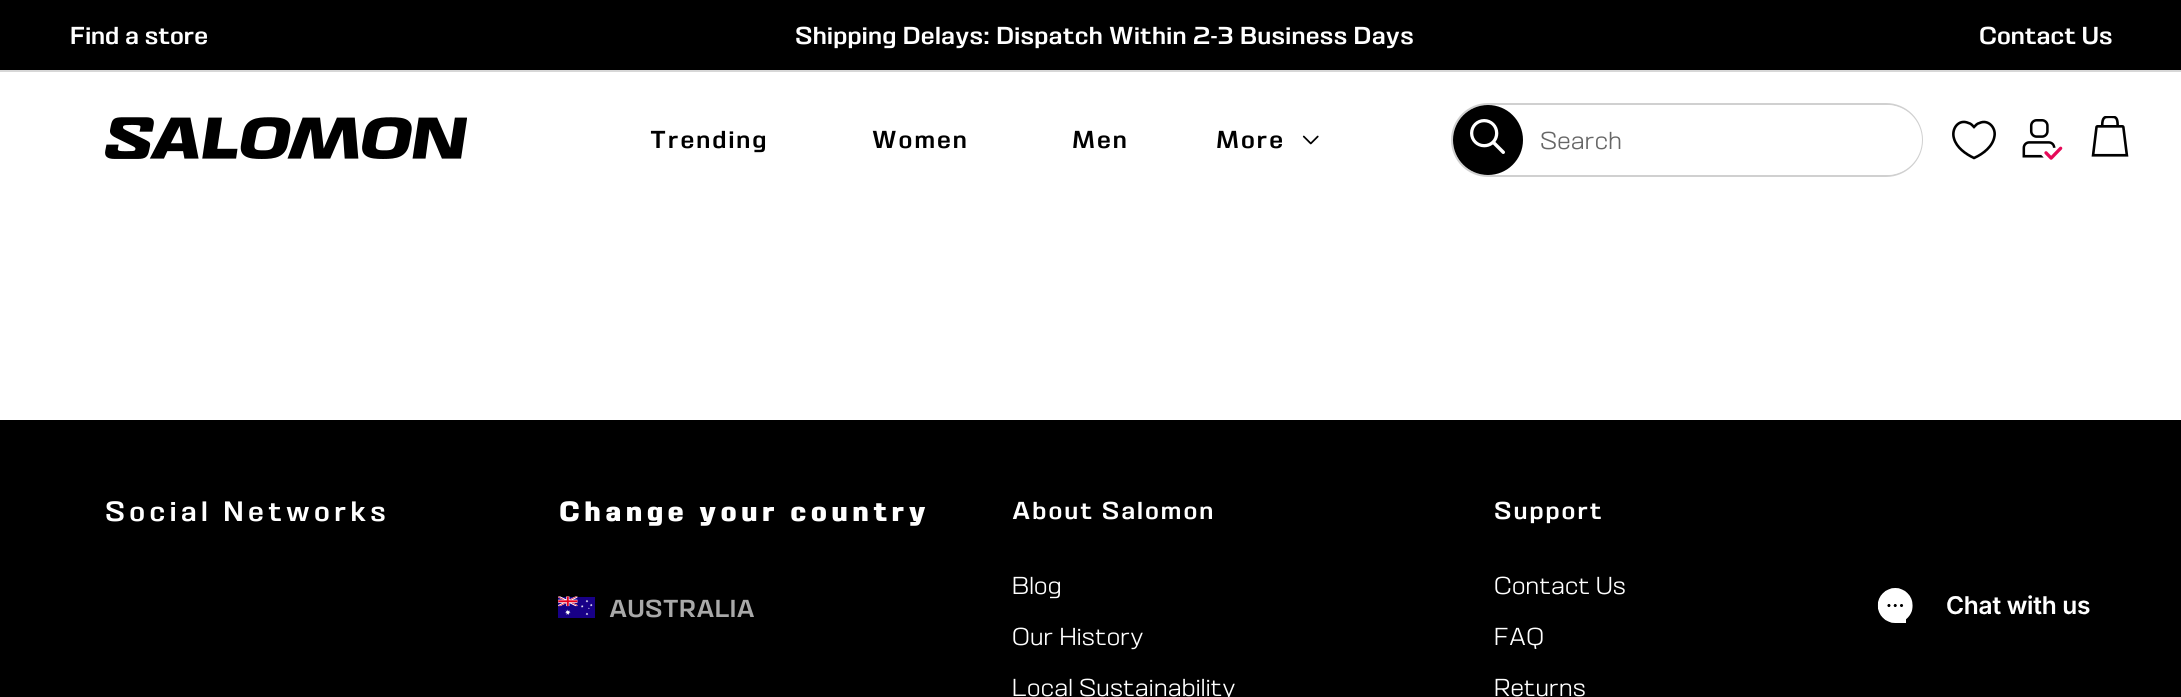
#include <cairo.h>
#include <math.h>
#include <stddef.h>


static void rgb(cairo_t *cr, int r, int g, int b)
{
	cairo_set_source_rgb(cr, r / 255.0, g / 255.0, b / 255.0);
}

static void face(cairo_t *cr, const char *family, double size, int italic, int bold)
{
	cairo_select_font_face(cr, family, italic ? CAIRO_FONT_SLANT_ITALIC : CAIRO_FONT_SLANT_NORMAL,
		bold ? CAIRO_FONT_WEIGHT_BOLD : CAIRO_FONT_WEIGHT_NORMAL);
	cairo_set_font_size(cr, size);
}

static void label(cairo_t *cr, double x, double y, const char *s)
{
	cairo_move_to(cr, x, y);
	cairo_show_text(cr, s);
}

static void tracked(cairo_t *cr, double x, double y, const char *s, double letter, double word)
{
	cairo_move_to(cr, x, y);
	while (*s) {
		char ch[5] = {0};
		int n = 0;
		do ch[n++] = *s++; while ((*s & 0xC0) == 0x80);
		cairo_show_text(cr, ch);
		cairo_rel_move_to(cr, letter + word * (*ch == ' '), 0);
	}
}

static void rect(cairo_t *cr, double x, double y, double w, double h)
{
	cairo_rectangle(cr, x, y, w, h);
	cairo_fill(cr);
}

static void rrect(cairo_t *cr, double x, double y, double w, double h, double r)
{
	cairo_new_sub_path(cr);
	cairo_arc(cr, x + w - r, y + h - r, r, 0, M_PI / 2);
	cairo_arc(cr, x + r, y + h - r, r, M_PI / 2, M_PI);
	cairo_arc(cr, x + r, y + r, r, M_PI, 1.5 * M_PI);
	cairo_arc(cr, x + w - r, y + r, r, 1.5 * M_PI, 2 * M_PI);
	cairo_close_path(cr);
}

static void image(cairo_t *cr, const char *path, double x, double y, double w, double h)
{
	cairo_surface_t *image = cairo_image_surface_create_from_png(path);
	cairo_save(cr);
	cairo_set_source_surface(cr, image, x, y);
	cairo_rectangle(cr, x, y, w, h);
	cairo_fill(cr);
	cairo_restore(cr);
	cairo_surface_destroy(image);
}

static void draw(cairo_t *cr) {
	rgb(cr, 255, 255, 255);
	cairo_paint(cr);
	rgb(cr, 0, 0, 0);
	rect(cr, 0, 0, 2181, 70);
	rgb(cr, 215, 215, 215);
	rect(cr, 0, 70, 2181, 2);
	face(cr, "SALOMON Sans", 24.5, 0, 0);
	rgb(cr, 255, 255, 255);
	label(cr, 70, 44, "Find a store");
	tracked(cr, 795, 44, "Shipping Delays: Dispatch Within 2-3 Business Days", 0.25, 0);
	label(cr, 1979, 44, "Contact Us");
	image(cr, "image0.png", 105, 117, 362, 42);
	rgb(cr, 0, 0, 0);
	tracked(cr, 650, 148, "Trending", 2, 0);
	tracked(cr, 872, 148, "Women", 2, 0);
	tracked(cr, 1072, 148, "Men", 2, 0);
	tracked(cr, 1216, 148, "More", 2, 0);
	image(cr, "image1.png", 1302, 135, 17, 10);
	rrect(cr, 1452, 104, 470, 72, 36);
	rgb(cr, 208, 208, 208);
	cairo_stroke(cr);
	rgb(cr, 255, 255, 255);
	rrect(cr, 1453, 105, 469, 70, 35);
	cairo_fill(cr);
	rgb(cr, 0, 0, 0);
	cairo_arc(cr, 1488, 140, 35, 0, 2 * M_PI);
	cairo_fill(cr);
	image(cr, "image2.png", 1470, 119, 35, 35);
	face(cr, "SALOMON Sans Light", 24.5, 0, 0);
	rgb(cr, 102, 102, 102);
	tracked(cr, 1540, 149, "Search", 0.25, 0);
	cairo_new_path(cr);
	cairo_move_to(cr, 1974, 158);
	cairo_curve_to(cr, 1965.5, 154, 1956.5, 147.5, 1954, 138.5);
	cairo_curve_to(cr, 1951, 129, 1958.5, 118.5, 1968.5, 123);
	cairo_curve_to(cr, 1971, 123.5, 1972.5, 125.5, 1974, 127);
	cairo_curve_to(cr, 1975.5, 125.5, 1977, 123.5, 1979.5, 123);
	cairo_curve_to(cr, 1988, 119, 1996, 127.5, 1994.5, 136);
	cairo_curve_to(cr, 1993, 146.5, 1983, 154, 1974, 158);
	cairo_close_path(cr);
	rgb(cr, 0, 0, 0);
	cairo_set_line_width(cr, 2.6);
	cairo_stroke(cr);
	image(cr, "image3.png", 2022, 119, 41, 41);
	image(cr, "image4.png", 2091, 116, 38, 41);
	rect(cr, 0, 420, 2181, 277);
	face(cr, "SALOMON Sans", 28, 0, 0);
	rgb(cr, 255, 255, 255);
	tracked(cr, 105, 521, "Social Networks", 4.4, 0);
	face(cr, "SALOMON Sans", 28, 0, 1);
	tracked(cr, 559, 521, "Change your country", 4.4, 0);
	image(cr, "image5.png", 558, 596, 37, 22);
	face(cr, "SALOMON Sans", 24.5, 0, 0);
	rgb(cr, 169, 169, 169);
	tracked(cr, 609, 617, "AUSTRALIA", 0.25, 0);
	rgb(cr, 255, 255, 255);
	tracked(cr, 1012, 519, "About Salomon", 2, 0);
	face(cr, "SALOMON Sans Light", 24.5, 0, 0);
	tracked(cr, 1012, 594, "Blog", 0.25, 0);
	tracked(cr, 1012, 645, "Our History", 0.25, 0);
	tracked(cr, 1012, 696, "Local Sustainability", 0.25, 0);
	face(cr, "SALOMON Sans", 24.5, 0, 0);
	tracked(cr, 1494, 519, "Support", 2, 0);
	face(cr, "SALOMON Sans Light", 24.5, 0, 0);
	tracked(cr, 1494, 594, "Contact Us", 0.25, 0);
	tracked(cr, 1494, 645, "FAQ", 0.25, 0);
	tracked(cr, 1494, 696, "Returns", 0.25, 0);
	image(cr, "image6.png", 1877, 588, 213, 35);
}

int main(void) {
	cairo_surface_t *surface = cairo_image_surface_create(CAIRO_FORMAT_RGB24, 2181, 697);
	cairo_t *cr = cairo_create(surface);
	cairo_font_options_t *options = cairo_font_options_create();
	cairo_font_options_set_hint_metrics(options, CAIRO_HINT_METRICS_OFF);
	cairo_font_options_set_hint_style(options, CAIRO_HINT_STYLE_NONE);
	cairo_set_font_options(cr, options);
	cairo_set_miter_limit(cr, 4);
	draw(cr);
	cairo_surface_write_to_png(surface, "render.png");
	cairo_font_options_destroy(options);
	cairo_destroy(cr);
	cairo_surface_destroy(surface);
	return 0;
}
